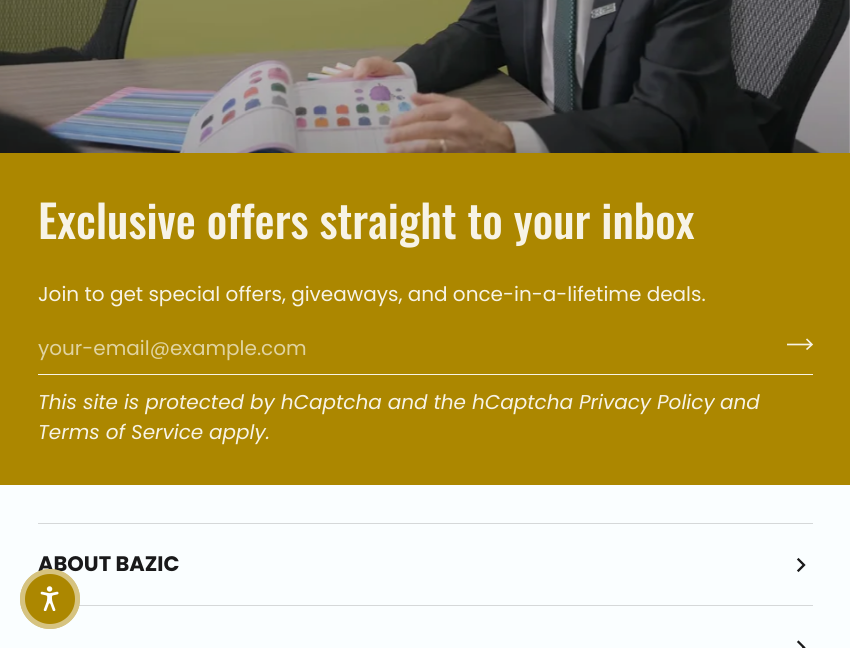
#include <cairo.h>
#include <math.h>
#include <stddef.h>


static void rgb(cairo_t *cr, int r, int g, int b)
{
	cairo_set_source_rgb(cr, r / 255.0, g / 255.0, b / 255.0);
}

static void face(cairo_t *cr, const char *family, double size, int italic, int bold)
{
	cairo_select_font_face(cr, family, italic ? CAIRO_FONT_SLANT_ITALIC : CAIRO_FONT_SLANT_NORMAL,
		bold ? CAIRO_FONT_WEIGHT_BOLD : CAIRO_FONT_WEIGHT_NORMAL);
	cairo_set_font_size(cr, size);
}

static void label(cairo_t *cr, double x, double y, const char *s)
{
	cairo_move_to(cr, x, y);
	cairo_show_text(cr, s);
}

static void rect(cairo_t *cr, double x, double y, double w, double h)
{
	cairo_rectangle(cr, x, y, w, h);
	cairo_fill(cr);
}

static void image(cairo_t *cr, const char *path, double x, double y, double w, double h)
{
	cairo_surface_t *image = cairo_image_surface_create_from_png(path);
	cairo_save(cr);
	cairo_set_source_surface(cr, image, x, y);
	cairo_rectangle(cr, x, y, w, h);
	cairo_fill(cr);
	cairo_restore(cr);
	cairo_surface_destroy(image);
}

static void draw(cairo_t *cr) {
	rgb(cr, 255, 255, 255);
	cairo_paint(cr);
	image(cr, "image0.png", 0, 0, 850, 153);
	rgb(cr, 250, 254, 255);
	rect(cr, 0, 485, 850, 163);
	rgb(cr, 172, 135, 0);
	rect(cr, 0, 153, 850, 332);
	face(cr, "Oswald Medium", 45, 0, 0);
	rgb(cr, 247, 243, 230);
	label(cr, 38, 239, "Exclusive offers straight to your inbox");
	face(cr, "Poppins", 20, 0, 0);
	label(cr, 38, 301, "Join to get special offers, giveaways, and once-in-a-lifetime deals.");
	rect(cr, 38, 374, 775, 1);
	rgb(cr, 224, 211, 161);
	label(cr, 38, 355, "your-email@example.com");
	cairo_new_path(cr);
	cairo_move_to(cr, 806.5, 339);
	cairo_line_to(cr, 812, 344.5);
	cairo_line_to(cr, 806.5, 349.5);
	cairo_move_to(cr, 787, 344.5);
	cairo_line_to(cr, 812, 344.5);
	rgb(cr, 247, 243, 230);
	cairo_set_line_width(cr, 1.6);
	cairo_stroke(cr);
	face(cr, "Poppins", 20, 1, 0);
	label(cr, 38, 409, "This site is protected by hCaptcha and the hCaptcha Privacy Policy");
	label(cr, 720, 409, "and");
	label(cr, 38, 439, "Terms of Service");
	label(cr, 209, 439, "apply.");
	rgb(cr, 213, 216, 217);
	rect(cr, 38, 523, 775, 1);
	rect(cr, 79, 605, 734, 1);
	face(cr, "Poppins", 21, 0, 1);
	rgb(cr, 25, 25, 26);
	label(cr, 38, 571, "ABOUT BAZIC");
	cairo_new_path(cr);
	cairo_move_to(cr, 798.5, 570.5);
	cairo_line_to(cr, 804, 565);
	cairo_line_to(cr, 798.5, 559.5);
	cairo_set_line_width(cr, 2.3);
	cairo_set_line_cap(cr, CAIRO_LINE_CAP_SQUARE);
	cairo_stroke(cr);
	cairo_new_path(cr);
	cairo_move_to(cr, 798.5, 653);
	cairo_line_to(cr, 804, 647.5);
	cairo_line_to(cr, 798.5, 642);
	cairo_stroke(cr);
	rgb(cr, 172, 135, 0);
	cairo_arc(cr, 50, 599, 30, 0, 2 * M_PI);
	cairo_fill(cr);
	cairo_arc(cr, 50, 599, 27.5, 0, 2 * M_PI);
	cairo_set_source_rgba(cr, 1, 1, 1, 0.5);
	cairo_set_line_width(cr, 5);
	cairo_set_line_cap(cr, CAIRO_LINE_CAP_BUTT);
	cairo_stroke(cr);
	image(cr, "image1.png", 40, 586, 19, 25);
}

int main(void) {
	cairo_surface_t *surface = cairo_image_surface_create(CAIRO_FORMAT_RGB24, 850, 648);
	cairo_t *cr = cairo_create(surface);
	cairo_font_options_t *options = cairo_font_options_create();
	cairo_font_options_set_hint_metrics(options, CAIRO_HINT_METRICS_OFF);
	cairo_font_options_set_hint_style(options, CAIRO_HINT_STYLE_NONE);
	cairo_set_font_options(cr, options);
	cairo_set_miter_limit(cr, 4);
	draw(cr);
	cairo_surface_write_to_png(surface, "render.png");
	cairo_font_options_destroy(options);
	cairo_destroy(cr);
	cairo_surface_destroy(surface);
	return 0;
}
